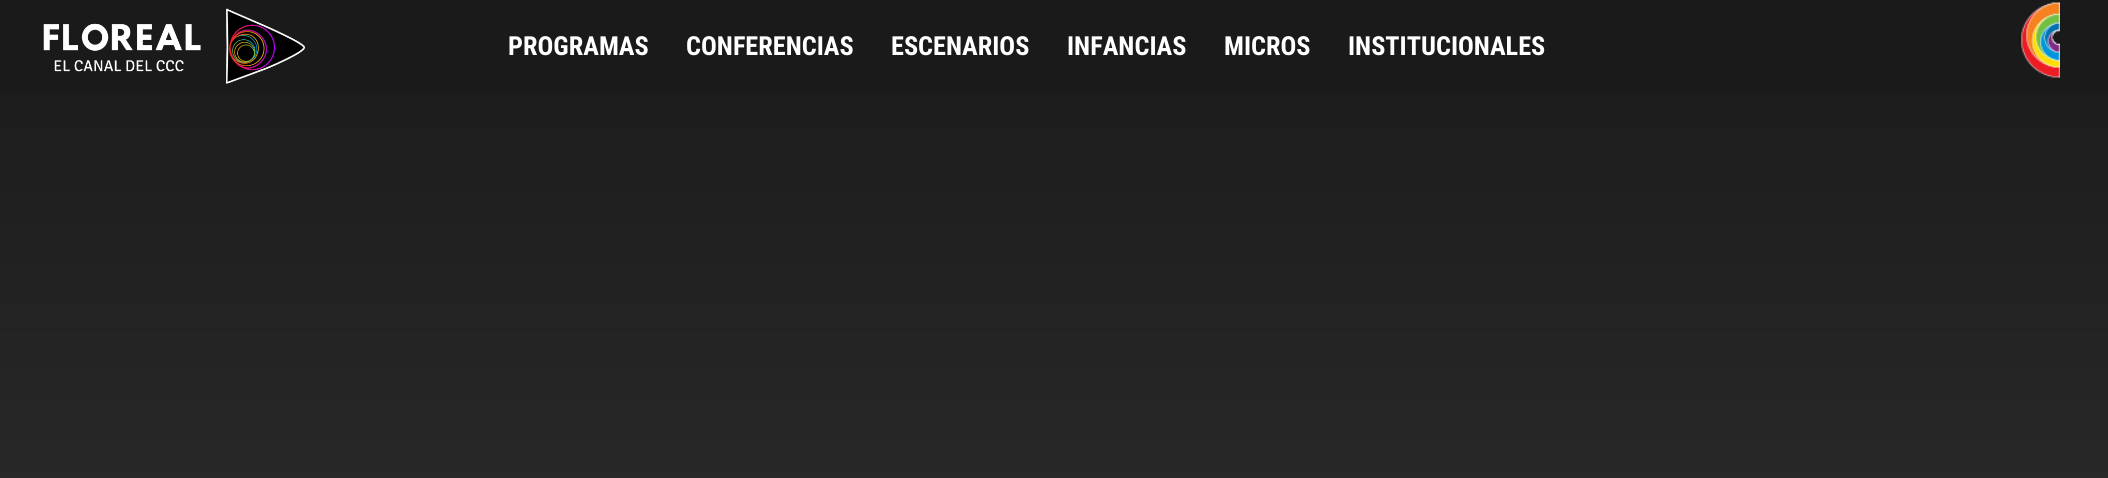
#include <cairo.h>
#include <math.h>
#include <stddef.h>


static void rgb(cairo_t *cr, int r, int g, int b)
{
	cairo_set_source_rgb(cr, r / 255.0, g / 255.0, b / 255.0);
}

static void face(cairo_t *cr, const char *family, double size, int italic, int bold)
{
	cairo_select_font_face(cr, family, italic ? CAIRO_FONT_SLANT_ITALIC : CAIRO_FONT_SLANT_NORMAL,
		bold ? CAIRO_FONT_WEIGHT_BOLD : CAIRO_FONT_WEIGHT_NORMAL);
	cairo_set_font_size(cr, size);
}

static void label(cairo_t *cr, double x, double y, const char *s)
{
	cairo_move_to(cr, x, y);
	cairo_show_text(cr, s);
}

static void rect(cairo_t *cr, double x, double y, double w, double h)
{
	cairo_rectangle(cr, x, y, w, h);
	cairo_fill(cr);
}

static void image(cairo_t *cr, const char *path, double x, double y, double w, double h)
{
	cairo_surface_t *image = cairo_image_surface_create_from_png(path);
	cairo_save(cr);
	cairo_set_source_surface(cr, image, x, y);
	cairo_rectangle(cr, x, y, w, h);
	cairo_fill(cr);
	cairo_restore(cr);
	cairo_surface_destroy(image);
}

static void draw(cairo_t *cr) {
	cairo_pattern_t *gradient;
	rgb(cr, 255, 255, 255);
	cairo_paint(cr);
	rgb(cr, 26, 26, 26);
	rect(cr, 0, 0, 2108, 93);
	image(cr, "image0.png", 43, 8, 263, 76);
	face(cr, "Roboto Condensed", 26.25, 0, 1);
	rgb(cr, 255, 255, 255);
	label(cr, 508, 55, "PROGRAMAS");
	label(cr, 686, 55, "CONFERENCIAS");
	label(cr, 891, 55, "ESCENARIOS");
	label(cr, 1067, 55, "INFANCIAS");
	label(cr, 1224, 55, "MICROS");
	label(cr, 1348, 55, "INSTITUCIONALES");
	image(cr, "image1.png", 2021, 2, 39, 76);
	gradient = cairo_pattern_create_linear(1054, 0, 1054, 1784);
	cairo_pattern_add_color_stop_rgba(gradient, 0, 0.102, 0.102, 0.102, 1);
	cairo_pattern_add_color_stop_rgba(gradient, 1, 0.302, 0.302, 0.302, 1);
	cairo_set_source(cr, gradient);
	cairo_pattern_destroy(gradient);
	rect(cr, 0, 93, 2108, 385);
}

int main(void) {
	cairo_surface_t *surface = cairo_image_surface_create(CAIRO_FORMAT_RGB24, 2108, 478);
	cairo_t *cr = cairo_create(surface);
	cairo_font_options_t *options = cairo_font_options_create();
	cairo_font_options_set_hint_metrics(options, CAIRO_HINT_METRICS_OFF);
	cairo_font_options_set_hint_style(options, CAIRO_HINT_STYLE_NONE);
	cairo_set_font_options(cr, options);
	cairo_set_miter_limit(cr, 4);
	draw(cr);
	cairo_surface_write_to_png(surface, "render.png");
	cairo_font_options_destroy(options);
	cairo_destroy(cr);
	cairo_surface_destroy(surface);
	return 0;
}
